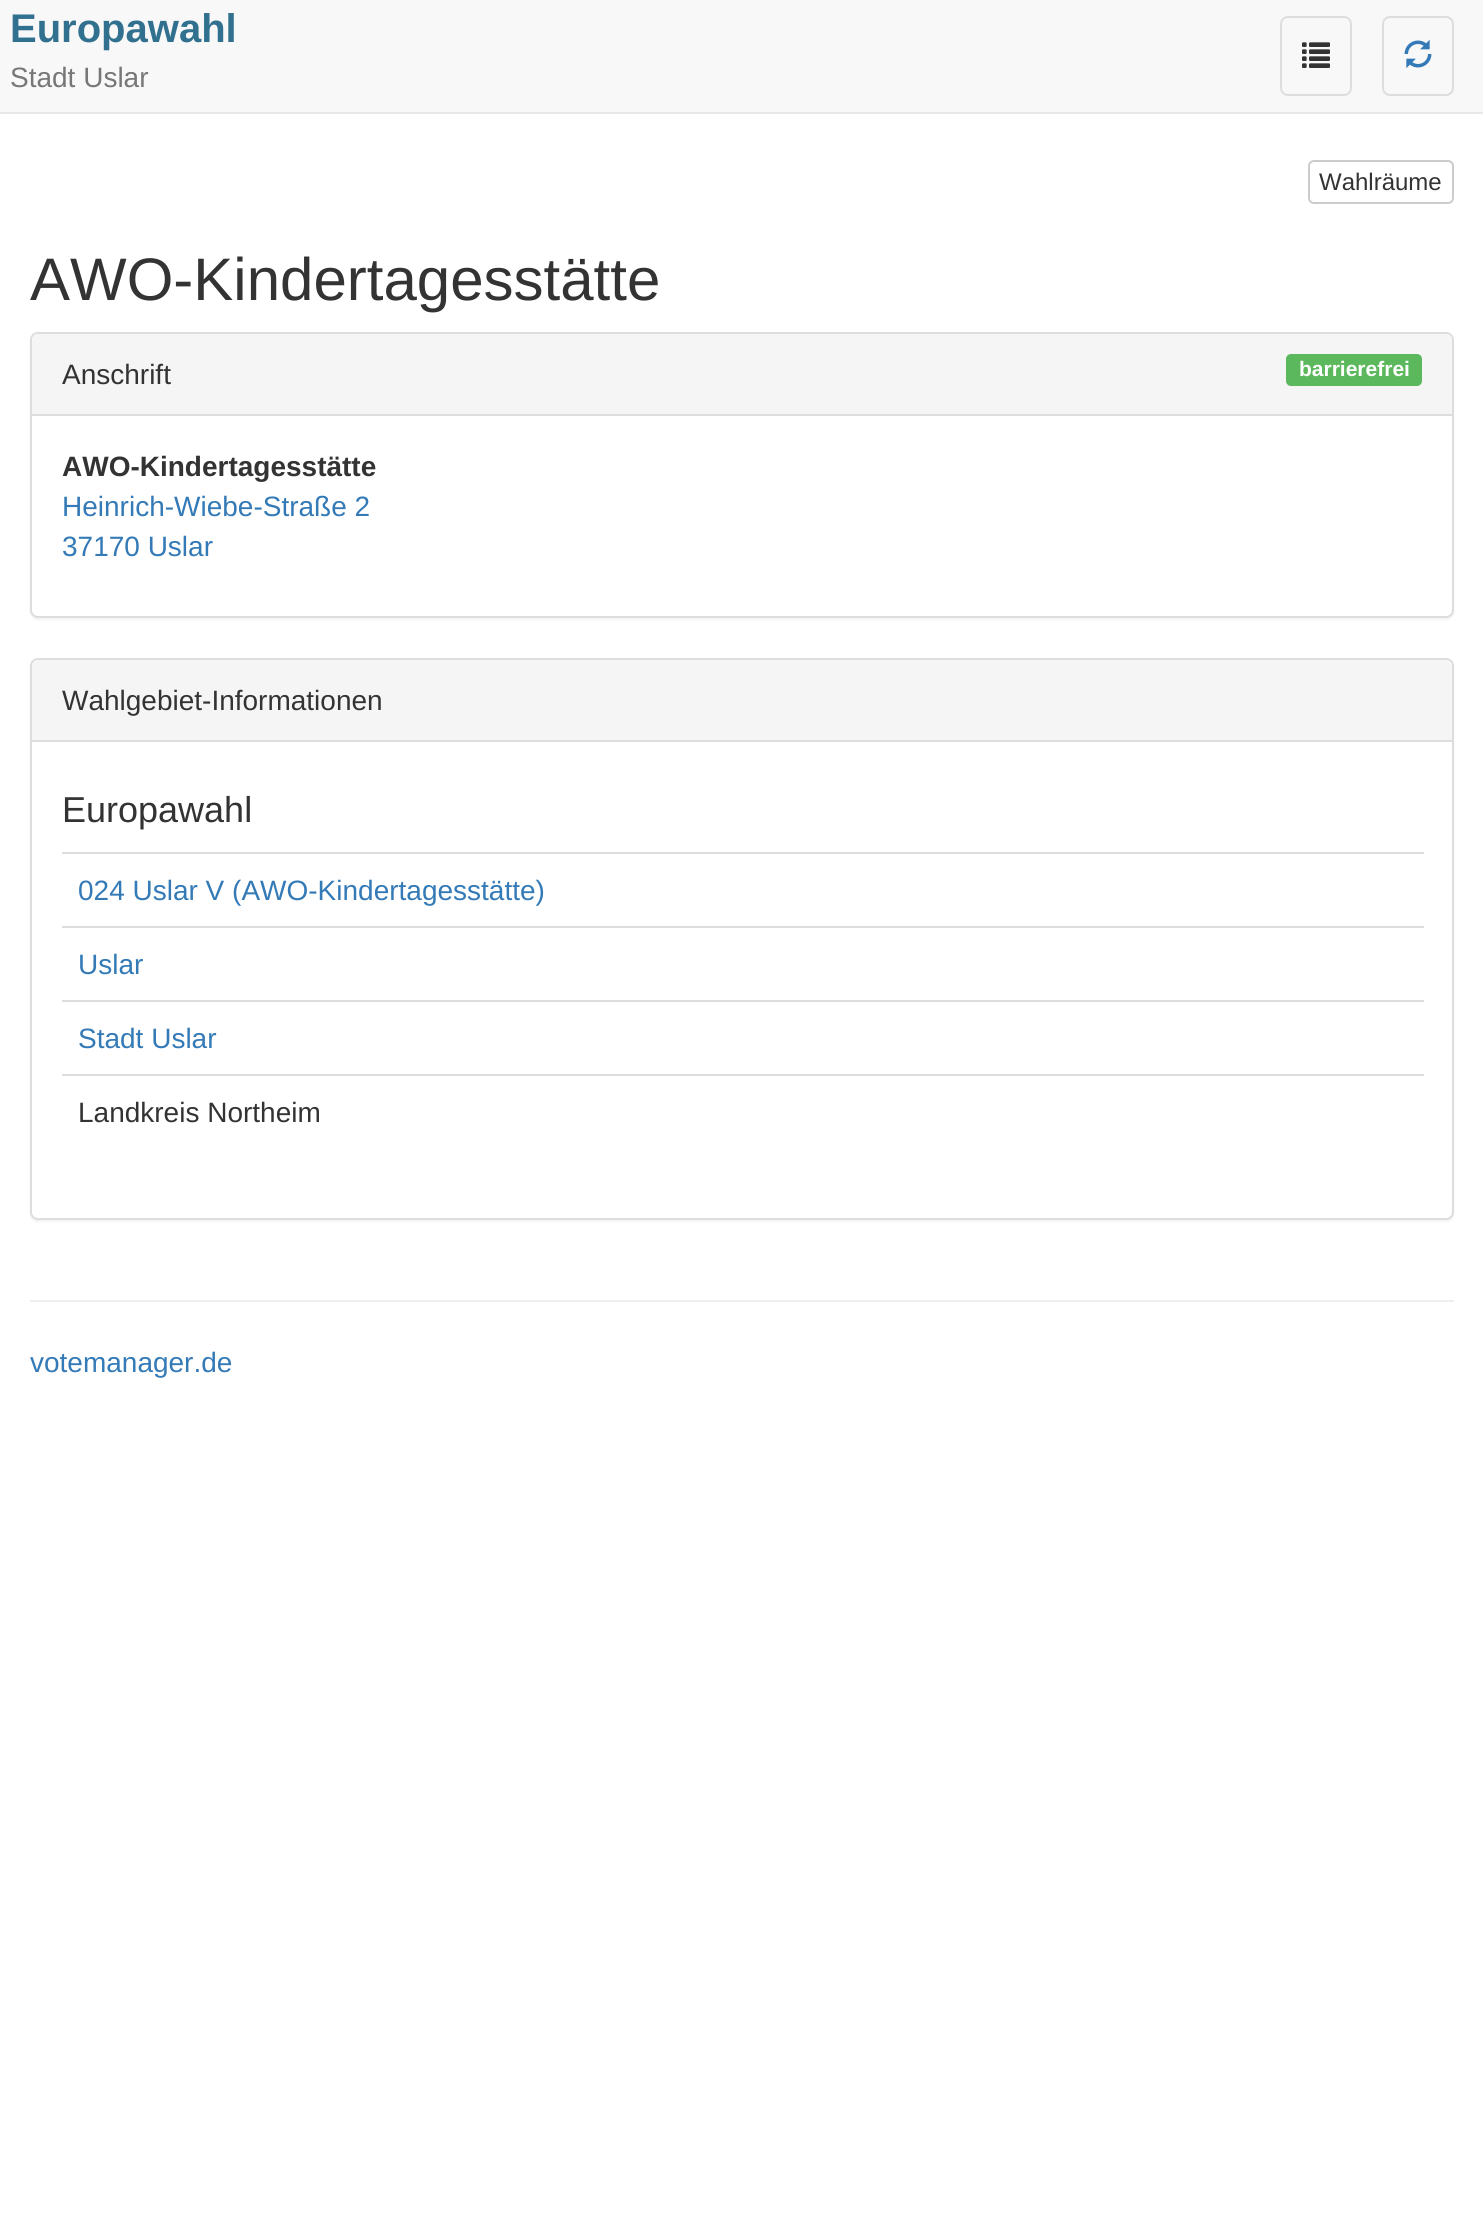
#include <cairo.h>
#include <math.h>
#include <stddef.h>


static void rgb(cairo_t *cr, int r, int g, int b)
{
	cairo_set_source_rgb(cr, r / 255.0, g / 255.0, b / 255.0);
}

static void face(cairo_t *cr, const char *family, double size, int italic, int bold)
{
	cairo_select_font_face(cr, family, italic ? CAIRO_FONT_SLANT_ITALIC : CAIRO_FONT_SLANT_NORMAL,
		bold ? CAIRO_FONT_WEIGHT_BOLD : CAIRO_FONT_WEIGHT_NORMAL);
	cairo_set_font_size(cr, size);
}

static void label(cairo_t *cr, double x, double y, const char *s)
{
	cairo_move_to(cr, x, y);
	cairo_show_text(cr, s);
}

static void rect(cairo_t *cr, double x, double y, double w, double h)
{
	cairo_rectangle(cr, x, y, w, h);
	cairo_fill(cr);
}

static void rrect(cairo_t *cr, double x, double y, double w, double h, double r)
{
	cairo_new_sub_path(cr);
	cairo_arc(cr, x + w - r, y + h - r, r, 0, M_PI / 2);
	cairo_arc(cr, x + r, y + h - r, r, M_PI / 2, M_PI);
	cairo_arc(cr, x + r, y + r, r, M_PI, 1.5 * M_PI);
	cairo_arc(cr, x + w - r, y + r, r, 1.5 * M_PI, 2 * M_PI);
	cairo_close_path(cr);
}

static void soft_shadow(cairo_t *cr, double x, double y, double w, double h, double r, double blur, double alpha)
{
	cairo_push_group_with_content(cr, CAIRO_CONTENT_ALPHA);
	cairo_set_operator(cr, CAIRO_OPERATOR_SOURCE);
	for (int i = 15; i >= -15 && fmin(w, h) + blur * i / 3 > 0; i -= 2) {
		double e = blur * i / 6;
		cairo_set_source_rgba(cr, 0, 0, 0, alpha * erfc((i - 1) / 8.5) / 2);
		rrect(cr, x - e, y - e, w + 2 * e, h + 2 * e, fmax(0, fmin(r + e + blur * .6, fmin(w, h) / 2 + e)));
		cairo_fill(cr);
	}
	cairo_pattern_t *soft = cairo_pop_group(cr);
	cairo_mask(cr, soft);
	cairo_pattern_destroy(soft);
}

static void image(cairo_t *cr, const char *path, double x, double y, double w, double h)
{
	cairo_surface_t *image = cairo_image_surface_create_from_png(path);
	cairo_save(cr);
	cairo_set_source_surface(cr, image, x, y);
	cairo_rectangle(cr, x, y, w, h);
	cairo_fill(cr);
	cairo_restore(cr);
	cairo_surface_destroy(image);
}

static void draw(cairo_t *cr) {
	rgb(cr, 255, 255, 255);
	cairo_paint(cr);
	rgb(cr, 248, 248, 248);
	rect(cr, 0, 0, 1483, 112);
	rgb(cr, 231, 231, 231);
	rect(cr, 0, 112, 1483, 2);
	face(cr, "Liberation Sans", 40, 0, 1);
	rgb(cr, 49, 112, 143);
	label(cr, 10, 42, "Europawahl");
	face(cr, "Liberation Sans", 28, 0, 0);
	rgb(cr, 119, 119, 119);
	label(cr, 10, 87, "Stadt Uslar");
	rrect(cr, 1281, 17, 70, 78, 7);
	rgb(cr, 221, 221, 221);
	cairo_stroke(cr);
	image(cr, "image0.png", 1302, 42, 28, 26);
	rrect(cr, 1383, 17, 70, 78, 7);
	cairo_stroke(cr);
	image(cr, "image1.png", 1404, 40, 28, 28);
	rrect(cr, 1309, 161, 144, 42, 5);
	rgb(cr, 204, 204, 204);
	cairo_stroke(cr);
	face(cr, "Liberation Sans", 24, 0, 0);
	rgb(cr, 51, 51, 51);
	label(cr, 1319, 190, "Wahlräume");
	face(cr, "Liberation Sans", 60, 0, 0);
	label(cr, 30, 300, "AWO-Kindertagesstätte");
	rgb(cr, 0, 0, 0);
	soft_shadow(cr, 30, 334, 1424, 286, 8, 1, 0.05);
	rgb(cr, 255, 255, 255);
	rrect(cr, 31, 333, 1422, 284, 7);
	cairo_fill_preserve(cr);
	rgb(cr, 221, 221, 221);
	cairo_stroke(cr);
	rgb(cr, 245, 245, 245);
	cairo_new_path(cr);
	cairo_move_to(cr, 38, 334);
	cairo_line_to(cr, 1446, 334);
	cairo_curve_to(cr, 1449.5, 334, 1452, 336.5, 1452, 340);
	cairo_line_to(cr, 1452, 416);
	cairo_line_to(cr, 32, 416);
	cairo_line_to(cr, 32, 340);
	cairo_curve_to(cr, 32, 336.5, 34.5, 334, 38, 334);
	cairo_close_path(cr);
	cairo_fill(cr);
	rgb(cr, 221, 221, 221);
	rect(cr, 32, 414, 1420, 2);
	face(cr, "Liberation Sans", 28, 0, 0);
	rgb(cr, 51, 51, 51);
	label(cr, 62, 384, "Anschrift");
	rgb(cr, 92, 184, 92);
	rrect(cr, 1286, 354, 136, 32, 5);
	cairo_fill(cr);
	face(cr, "Liberation Sans", 21, 0, 1);
	rgb(cr, 255, 255, 255);
	label(cr, 1299, 376, "barrierefrei");
	face(cr, "Liberation Sans", 28, 0, 1);
	rgb(cr, 51, 51, 51);
	label(cr, 62, 476, "AWO-Kindertagesstätte");
	face(cr, "Liberation Sans", 28, 0, 0);
	rgb(cr, 51, 122, 183);
	label(cr, 62, 516, "Heinrich-Wiebe-Straße 2");
	label(cr, 62, 556, "37170 Uslar");
	rgb(cr, 0, 0, 0);
	soft_shadow(cr, 30, 660, 1424, 562, 8, 1, 0.05);
	rgb(cr, 255, 255, 255);
	rrect(cr, 31, 659, 1422, 560, 7);
	cairo_fill_preserve(cr);
	rgb(cr, 221, 221, 221);
	cairo_stroke(cr);
	rgb(cr, 245, 245, 245);
	cairo_new_path(cr);
	cairo_move_to(cr, 38, 660);
	cairo_line_to(cr, 1446, 660);
	cairo_curve_to(cr, 1449.5, 660, 1452, 662.5, 1452, 666);
	cairo_line_to(cr, 1452, 742);
	cairo_line_to(cr, 32, 742);
	cairo_line_to(cr, 32, 666);
	cairo_curve_to(cr, 32, 662.5, 34.5, 660, 38, 660);
	cairo_close_path(cr);
	cairo_fill(cr);
	rgb(cr, 221, 221, 221);
	rect(cr, 32, 740, 1420, 2);
	rgb(cr, 51, 51, 51);
	label(cr, 62, 710, "Wahlgebiet-Informationen");
	face(cr, "Liberation Sans", 36, 0, 0);
	label(cr, 62, 822, "Europawahl");
	rgb(cr, 221, 221, 221);
	rect(cr, 62, 852, 1362, 2);
	face(cr, "Liberation Sans", 28, 0, 0);
	rgb(cr, 51, 122, 183);
	label(cr, 78, 900, "024 Uslar V (AWO-Kindertagesstätte)");
	rgb(cr, 221, 221, 221);
	rect(cr, 62, 926, 1362, 2);
	rgb(cr, 51, 122, 183);
	label(cr, 78, 974, "Uslar");
	rgb(cr, 221, 221, 221);
	rect(cr, 62, 1000, 1362, 2);
	rgb(cr, 51, 122, 183);
	label(cr, 78, 1048, "Stadt Uslar");
	rgb(cr, 221, 221, 221);
	rect(cr, 62, 1074, 1362, 2);
	rgb(cr, 51, 51, 51);
	label(cr, 78, 1122, "Landkreis Northeim");
	rgb(cr, 238, 238, 238);
	rect(cr, 30, 1300, 1424, 2);
	rgb(cr, 51, 122, 183);
	label(cr, 30, 1372, "votemanager.de");
}

int main(void) {
	cairo_surface_t *surface = cairo_image_surface_create(CAIRO_FORMAT_RGB24, 1483, 2217);
	cairo_t *cr = cairo_create(surface);
	cairo_font_options_t *options = cairo_font_options_create();
	cairo_font_options_set_hint_metrics(options, CAIRO_HINT_METRICS_OFF);
	cairo_font_options_set_hint_style(options, CAIRO_HINT_STYLE_NONE);
	cairo_set_font_options(cr, options);
	cairo_set_miter_limit(cr, 4);
	draw(cr);
	cairo_surface_write_to_png(surface, "render.png");
	cairo_font_options_destroy(options);
	cairo_destroy(cr);
	cairo_surface_destroy(surface);
	return 0;
}
